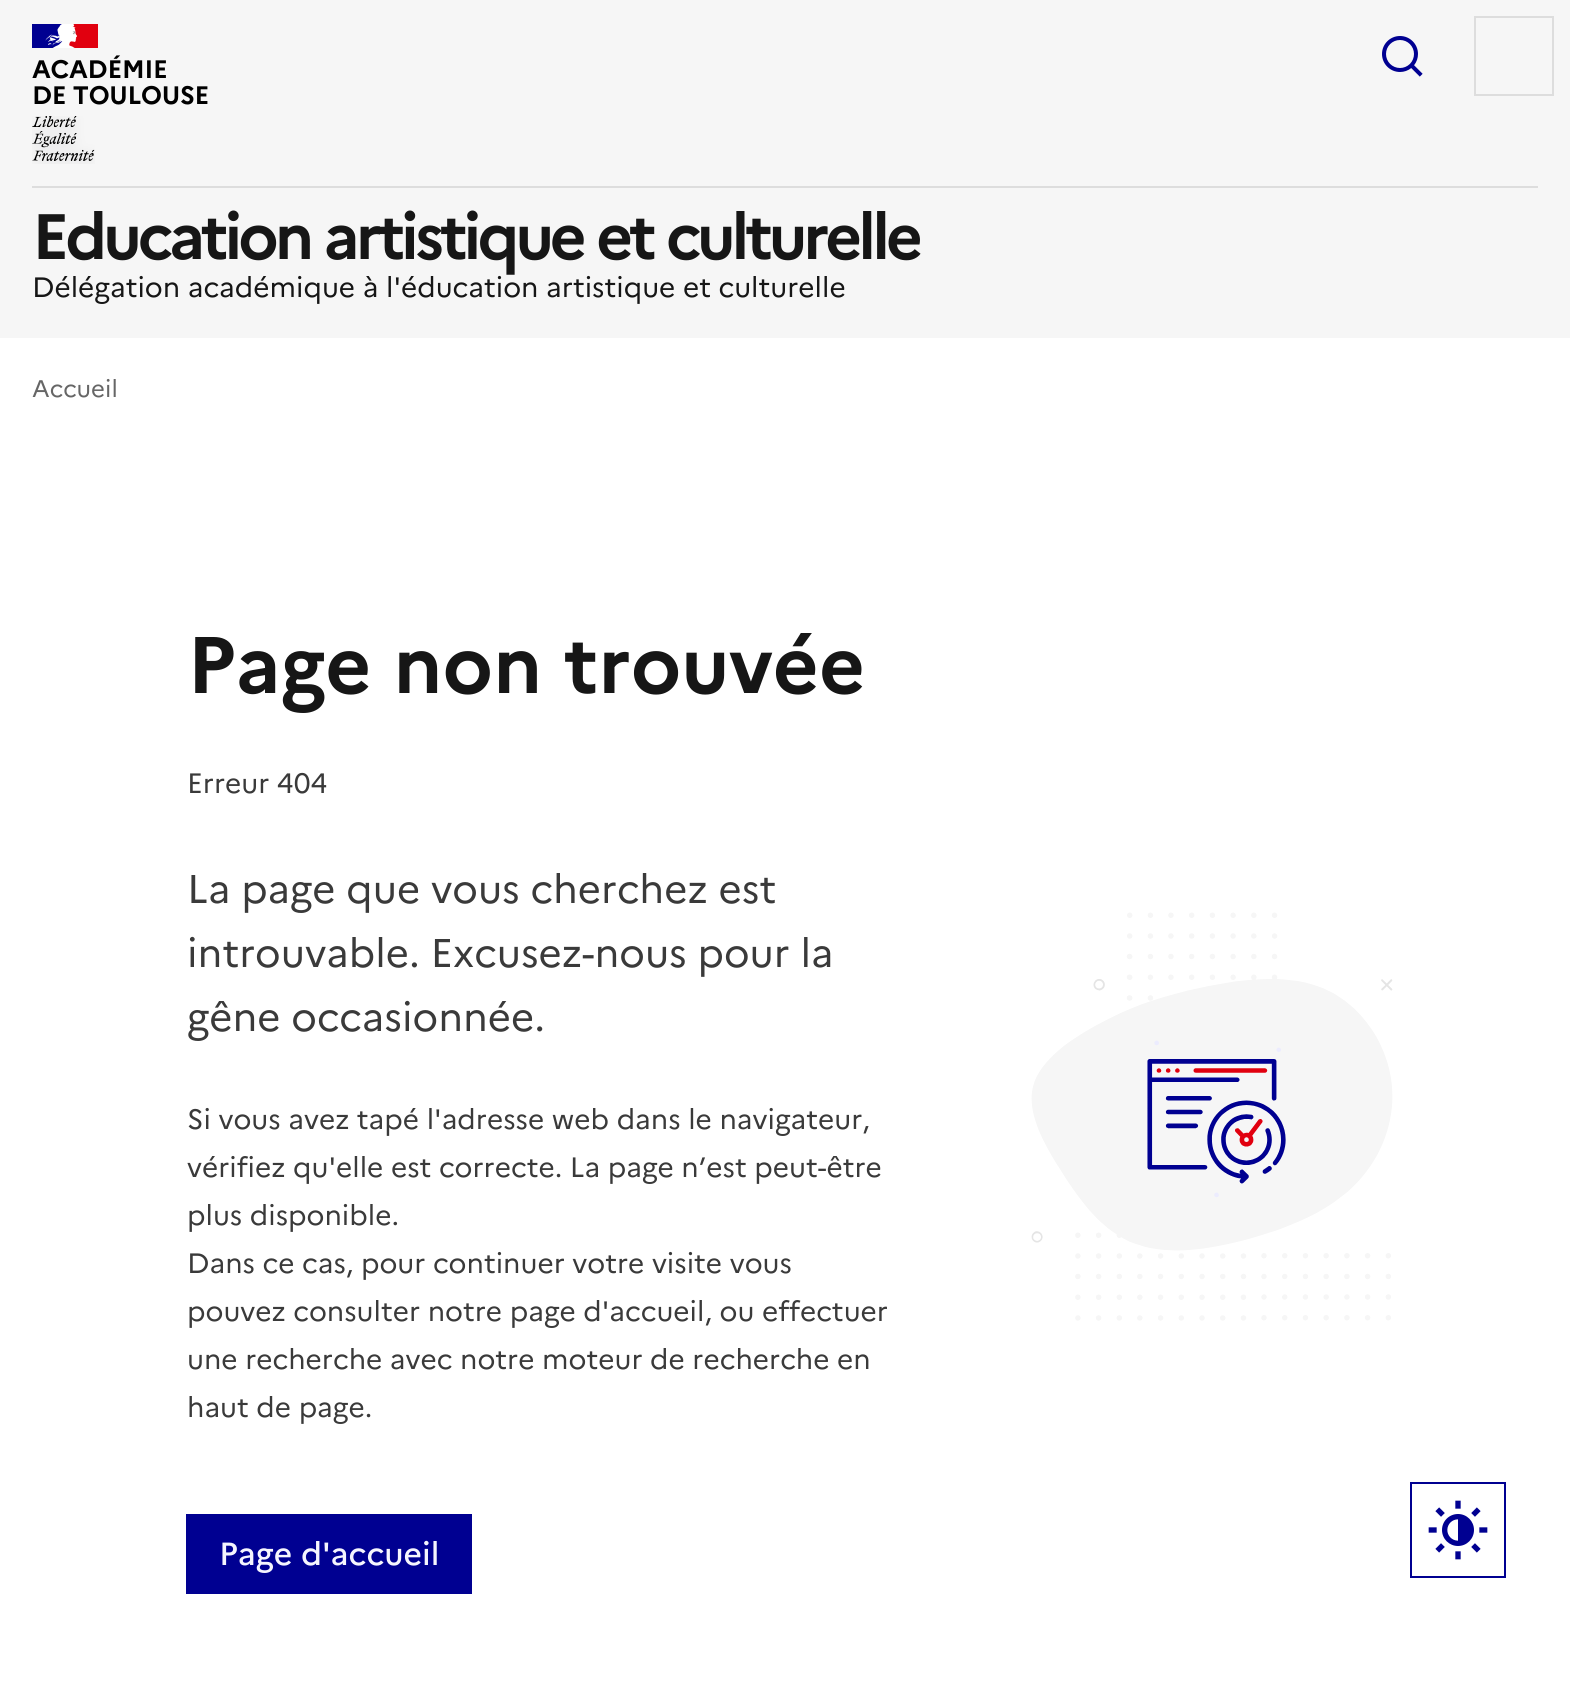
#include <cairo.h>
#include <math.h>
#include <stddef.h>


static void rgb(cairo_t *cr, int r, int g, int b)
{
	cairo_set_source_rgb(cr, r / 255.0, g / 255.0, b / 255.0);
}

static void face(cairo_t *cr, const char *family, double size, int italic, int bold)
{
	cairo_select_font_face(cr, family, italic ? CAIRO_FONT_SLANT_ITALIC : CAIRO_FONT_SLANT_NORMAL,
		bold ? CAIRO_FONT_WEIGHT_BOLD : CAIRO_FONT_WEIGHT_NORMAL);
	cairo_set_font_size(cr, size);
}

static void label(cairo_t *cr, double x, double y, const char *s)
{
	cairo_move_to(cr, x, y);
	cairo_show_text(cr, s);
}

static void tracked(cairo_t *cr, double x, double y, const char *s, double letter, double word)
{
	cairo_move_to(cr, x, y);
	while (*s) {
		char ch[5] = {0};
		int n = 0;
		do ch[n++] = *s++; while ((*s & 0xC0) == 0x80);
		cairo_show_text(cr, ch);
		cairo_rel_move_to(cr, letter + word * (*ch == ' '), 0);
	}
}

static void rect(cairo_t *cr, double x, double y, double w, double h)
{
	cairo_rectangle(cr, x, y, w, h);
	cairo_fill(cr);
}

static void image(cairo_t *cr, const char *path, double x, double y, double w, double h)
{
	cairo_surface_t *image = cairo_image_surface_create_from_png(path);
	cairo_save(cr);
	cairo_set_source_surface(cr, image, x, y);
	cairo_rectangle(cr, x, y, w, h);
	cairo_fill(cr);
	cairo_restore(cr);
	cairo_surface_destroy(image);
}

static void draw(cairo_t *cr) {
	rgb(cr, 255, 255, 255);
	cairo_paint(cr);
	rgb(cr, 246, 246, 246);
	rect(cr, 0, 0, 1570, 338);
	rgb(cr, 0, 0, 145);
	rect(cr, 32, 24, 31, 24);
	rgb(cr, 225, 0, 15);
	rect(cr, 69, 24, 29, 24);
	image(cr, "image0.png", 45, 24, 32, 24);
	face(cr, "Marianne", 25.25, 0, 1);
	rgb(cr, 0, 0, 0);
	tracked(cr, 32, 78, "ACADÉMIE", -0.25, 0);
	tracked(cr, 32, 104, "DE TOULOUSE", -0.25, 0);
	image(cr, "image1.png", 32, 116, 63, 48);
	image(cr, "image2.png", 1382, 36, 41, 41);
	cairo_rectangle(cr, 1475, 17, 78, 78);
	rgb(cr, 221, 221, 221);
	cairo_stroke(cr);
	rect(cr, 32, 186, 1506, 2);
	face(cr, "Marianne", 64, 0, 1);
	rgb(cr, 22, 22, 22);
	tracked(cr, 32, 259, "Education artistique et culturelle", -4, 0);
	face(cr, "Marianne", 28, 0, 0);
	label(cr, 32, 297, "Délégation académique à l'éducation artistique et culturelle");
	face(cr, "Marianne", 24, 0, 0);
	rgb(cr, 102, 102, 102);
	label(cr, 32, 397, "Accueil");
	face(cr, "Marianne", 80, 0, 1);
	rgb(cr, 22, 22, 22);
	label(cr, 187, 693, "Page non trouvée");
	face(cr, "Marianne", 28, 0, 0);
	rgb(cr, 58, 58, 58);
	label(cr, 187, 793, "Erreur 404");
	face(cr, "Marianne", 40, 0, 0);
	label(cr, 187, 903, "La page que vous cherchez est");
	label(cr, 187, 967, "introuvable. Excusez-nous pour la");
	label(cr, 187, 1031, "gêne occasionnée.");
	face(cr, "Marianne", 28, 0, 0);
	label(cr, 187, 1129, "Si vous avez tapé l'adresse web dans le navigateur,");
	label(cr, 187, 1177, "vérifiez qu'elle est correcte. La page n’est peut-être");
	label(cr, 187, 1225, "plus disponible.");
	label(cr, 187, 1273, "Dans ce cas, pour continuer votre visite vous");
	label(cr, 187, 1321, "pouvez consulter notre page d'accueil, ou effectuer");
	label(cr, 187, 1369, "une recherche avec notre moteur de recherche en");
	label(cr, 187, 1417, "haut de page.");
	rgb(cr, 0, 0, 145);
	rect(cr, 186, 1514, 286, 80);
	face(cr, "Marianne Medium", 32, 0, 0);
	rgb(cr, 245, 245, 254);
	label(cr, 219, 1565, "Page d'accueil");
	image(cr, "image3.png", 1031, 912, 362, 409);
	cairo_rectangle(cr, 1411, 1483, 94, 94);
	rgb(cr, 0, 0, 145);
	cairo_stroke(cr);
	image(cr, "image4.png", 1428, 1500, 60, 60);
}

int main(void) {
	cairo_surface_t *surface = cairo_image_surface_create(CAIRO_FORMAT_RGB24, 1570, 1689);
	cairo_t *cr = cairo_create(surface);
	cairo_font_options_t *options = cairo_font_options_create();
	cairo_font_options_set_hint_metrics(options, CAIRO_HINT_METRICS_OFF);
	cairo_font_options_set_hint_style(options, CAIRO_HINT_STYLE_NONE);
	cairo_set_font_options(cr, options);
	cairo_set_miter_limit(cr, 4);
	draw(cr);
	cairo_surface_write_to_png(surface, "render.png");
	cairo_font_options_destroy(options);
	cairo_destroy(cr);
	cairo_surface_destroy(surface);
	return 0;
}
